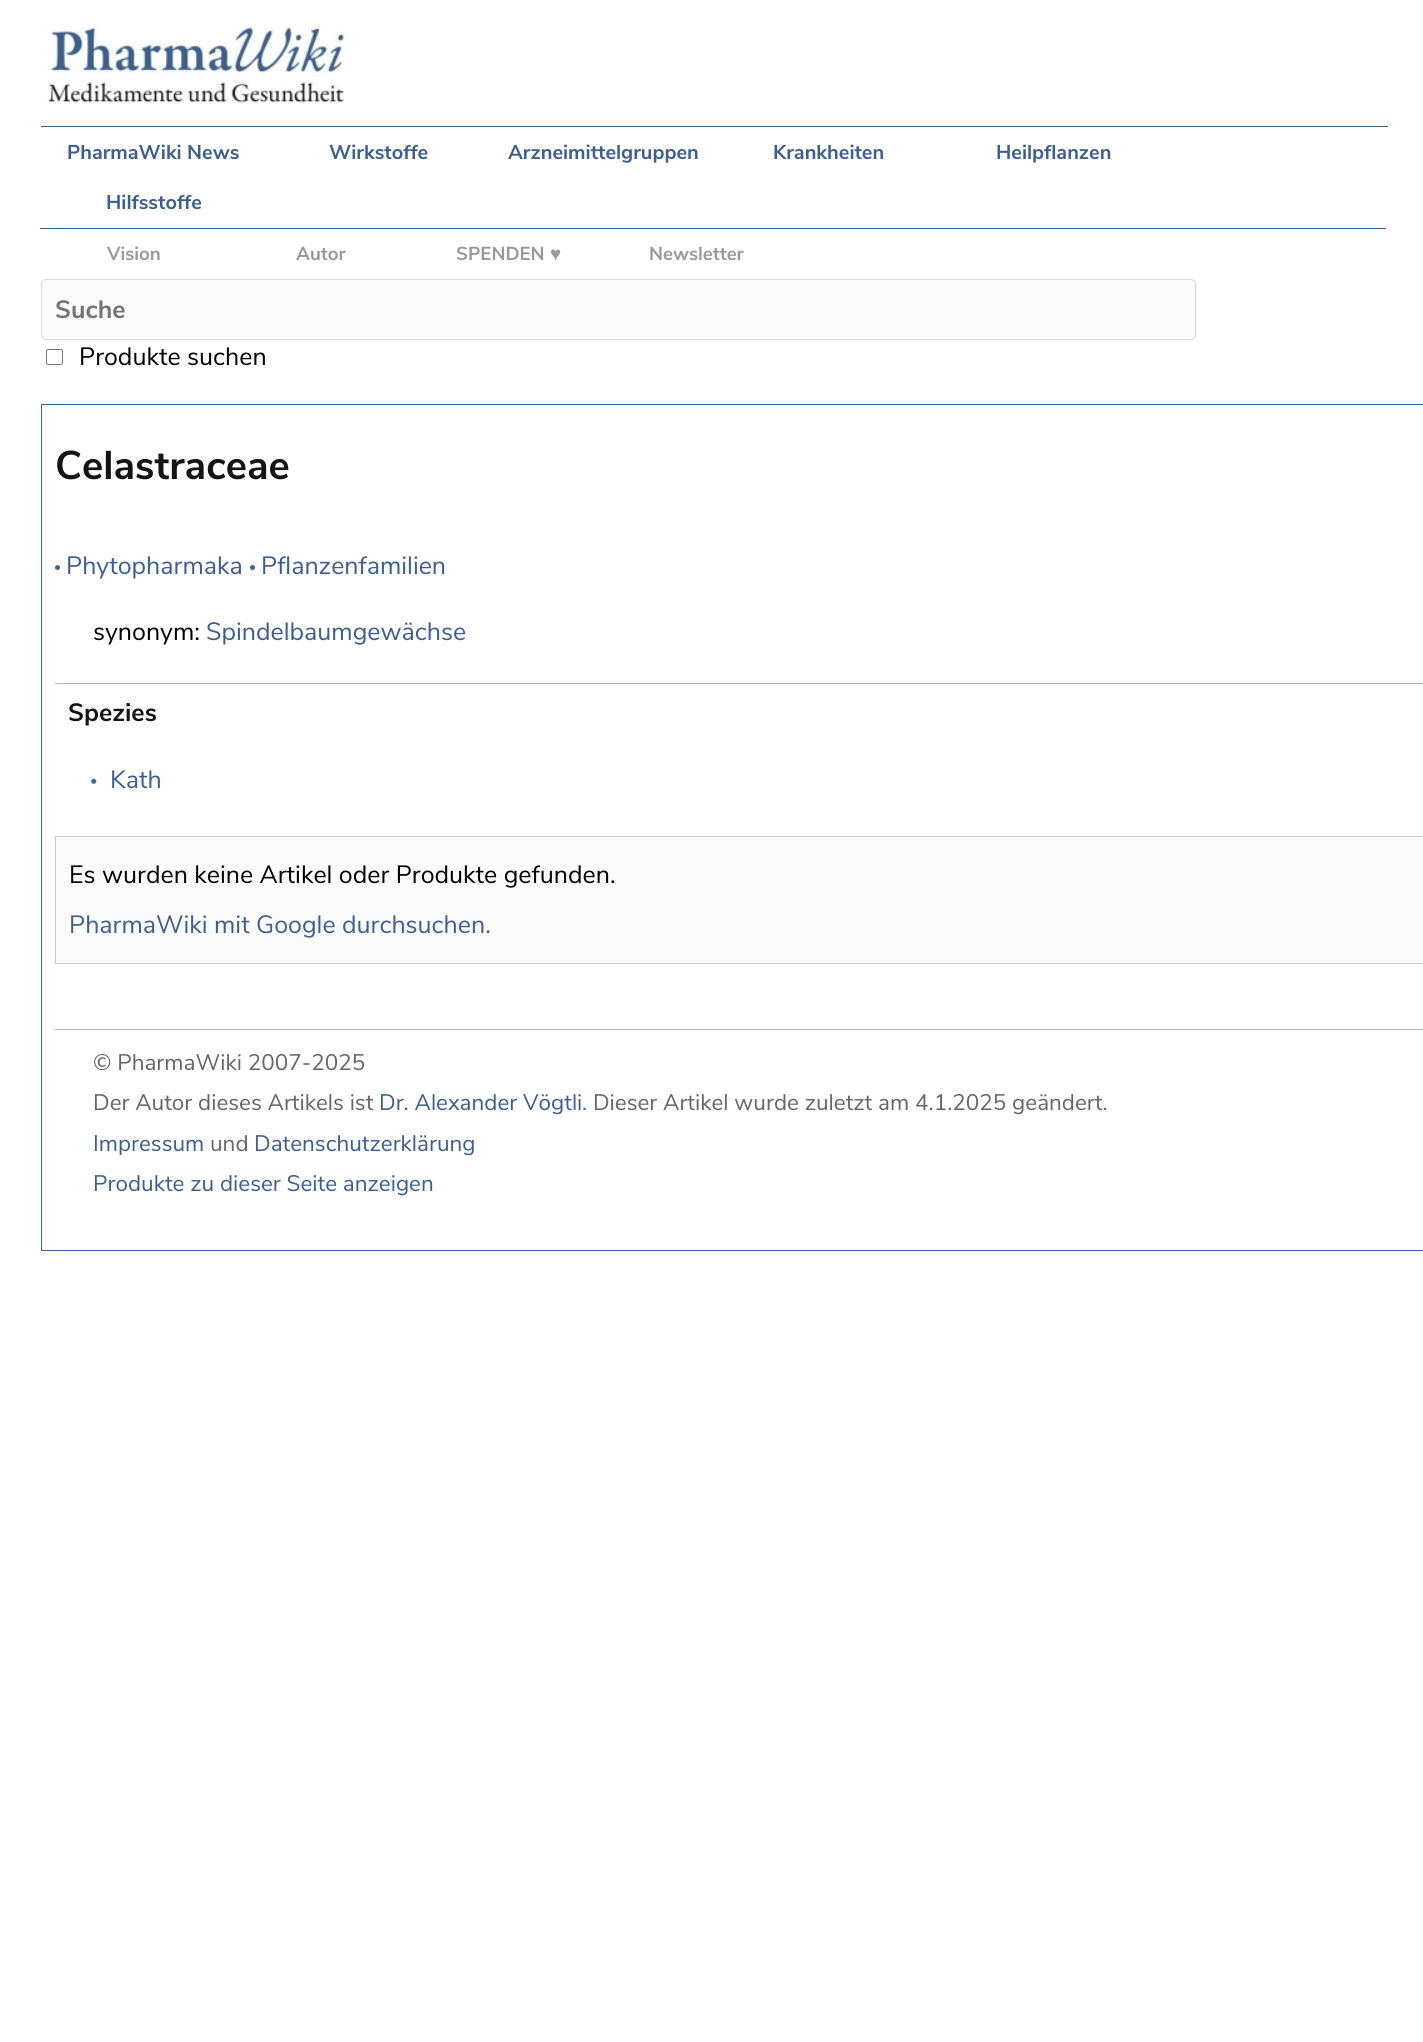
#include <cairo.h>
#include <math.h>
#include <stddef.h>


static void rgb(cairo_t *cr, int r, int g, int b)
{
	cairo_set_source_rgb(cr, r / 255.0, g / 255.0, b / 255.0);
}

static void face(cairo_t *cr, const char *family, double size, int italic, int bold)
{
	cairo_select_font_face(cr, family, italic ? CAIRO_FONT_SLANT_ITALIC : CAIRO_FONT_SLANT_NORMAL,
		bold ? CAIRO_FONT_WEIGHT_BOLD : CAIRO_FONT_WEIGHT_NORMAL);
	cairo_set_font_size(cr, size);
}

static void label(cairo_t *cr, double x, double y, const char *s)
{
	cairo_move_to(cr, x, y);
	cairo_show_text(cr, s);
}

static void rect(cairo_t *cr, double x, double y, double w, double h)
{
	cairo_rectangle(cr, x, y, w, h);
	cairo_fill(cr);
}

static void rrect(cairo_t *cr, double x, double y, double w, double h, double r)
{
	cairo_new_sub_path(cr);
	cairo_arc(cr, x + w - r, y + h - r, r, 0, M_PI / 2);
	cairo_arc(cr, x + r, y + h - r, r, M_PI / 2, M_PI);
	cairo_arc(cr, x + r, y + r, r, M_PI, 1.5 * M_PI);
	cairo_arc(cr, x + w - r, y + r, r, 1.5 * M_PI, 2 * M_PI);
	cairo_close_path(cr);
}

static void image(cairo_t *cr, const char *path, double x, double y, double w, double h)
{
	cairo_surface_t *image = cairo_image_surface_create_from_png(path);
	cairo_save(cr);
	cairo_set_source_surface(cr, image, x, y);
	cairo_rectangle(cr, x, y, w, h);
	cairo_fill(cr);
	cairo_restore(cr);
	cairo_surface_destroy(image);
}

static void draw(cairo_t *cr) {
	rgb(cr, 255, 255, 255);
	cairo_paint(cr);
	image(cr, "image0.png", 47, 25, 299, 78);
	rgb(cr, 60, 95, 144);
	rect(cr, 41, 126, 1347, 1);
	face(cr, "Nunito Sans", 20, 0, 1);
	label(cr, 67, 159, "PharmaWiki News");
	label(cr, 329, 159, "Wirkstoffe");
	label(cr, 508, 159, "Arzneimittelgruppen");
	label(cr, 773, 159, "Krankheiten");
	label(cr, 996, 159, "Heilpflanzen");
	label(cr, 106, 209, "Hilfsstoffe");
	rect(cr, 40, 228, 1346, 1);
	face(cr, "Nunito Sans", 18.75, 0, 1);
	rgb(cr, 153, 153, 153);
	label(cr, 107, 260, "Vision");
	label(cr, 296, 260, "Autor");
	label(cr, 456, 260, "SPENDEN");
	face(cr, "Liberation Serif", 18.75, 0, 1);
	label(cr, 550, 260, "♥");
	face(cr, "Nunito Sans", 18.75, 0, 1);
	label(cr, 649, 260, "Newsletter");
	rgb(cr, 251, 251, 251);
	rrect(cr, 41.5, 279.5, 1154, 60, 4.5);
	cairo_fill_preserve(cr);
	rgb(cr, 221, 221, 221);
	cairo_set_line_width(cr, 1);
	cairo_stroke(cr);
	face(cr, "Nunito Sans", 25, 0, 1);
	rgb(cr, 117, 117, 117);
	label(cr, 55, 318, "Suche");
	rrect(cr, 46.5, 349.5, 16, 15, 2);
	rgb(cr, 118, 118, 118);
	cairo_stroke(cr);
	face(cr, "Nunito Sans", 25, 0, 0);
	rgb(cr, 0, 0, 0);
	label(cr, 79, 365, "Produkte suchen");
	cairo_rectangle(cr, 41.5, 404.5, 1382, 846);
	rgb(cr, 60, 95, 144);
	cairo_stroke(cr);
	face(cr, "Nunito Sans", 40, 0, 1);
	rgb(cr, 20, 20, 20);
	label(cr, 55, 479, "Celastraceae");
	image(cr, "image1.png", 55, 564, 5, 7);
	face(cr, "Nunito Sans", 25, 0, 0);
	rgb(cr, 60, 95, 144);
	label(cr, 66, 574, "Phytopharmaka");
	image(cr, "image1.png", 250, 564, 5, 7);
	label(cr, 261, 574, "Pflanzenfamilien");
	rgb(cr, 0, 0, 0);
	label(cr, 93, 640, "synonym:");
	rgb(cr, 60, 95, 144);
	label(cr, 206, 640, "Spindelbaumgewächse");
	rgb(cr, 165, 186, 218);
	rect(cr, 55, 683, 1368, 1);
	face(cr, "Nunito Sans", 25, 0, 1);
	rgb(cr, 20, 20, 20);
	label(cr, 68, 721, "Spezies");
	image(cr, "image2.png", 91, 778, 6, 6);
	face(cr, "Nunito Sans", 25, 0, 0);
	rgb(cr, 60, 95, 144);
	label(cr, 110, 788, "Kath");
	rgb(cr, 251, 251, 251);
	cairo_rectangle(cr, 55.5, 836.5, 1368, 127);
	cairo_fill_preserve(cr);
	rgb(cr, 204, 204, 204);
	cairo_stroke(cr);
	rgb(cr, 0, 0, 0);
	label(cr, 69, 883, "Es wurden keine Artikel oder Produkte gefunden.");
	rgb(cr, 60, 95, 144);
	label(cr, 69, 933, "PharmaWiki mit Google durchsuchen.");
	rgb(cr, 165, 186, 218);
	rect(cr, 55, 1029, 1368, 1);
	face(cr, "Nunito Sans", 22.5, 0, 0);
	rgb(cr, 102, 102, 102);
	label(cr, 93, 1070, "© PharmaWiki 2007-2025");
	label(cr, 93, 1110, "Der Autor dieses Artikels ist");
	rgb(cr, 60, 95, 144);
	label(cr, 379, 1110, "Dr. Alexander Vögtli");
	rgb(cr, 102, 102, 102);
	label(cr, 582, 1110, ". Dieser Artikel wurde zuletzt am 4.1.2025 geändert.");
	rgb(cr, 60, 95, 144);
	label(cr, 93, 1151, "Impressum");
	rgb(cr, 102, 102, 102);
	label(cr, 210, 1151, "und");
	rgb(cr, 60, 95, 144);
	label(cr, 254, 1151, "Datenschutzerklärung");
	label(cr, 93, 1191, "Produkte zu dieser Seite anzeigen");
}

int main(void) {
	cairo_surface_t *surface = cairo_image_surface_create(CAIRO_FORMAT_RGB24, 1423, 2042);
	cairo_t *cr = cairo_create(surface);
	cairo_font_options_t *options = cairo_font_options_create();
	cairo_font_options_set_hint_metrics(options, CAIRO_HINT_METRICS_OFF);
	cairo_font_options_set_hint_style(options, CAIRO_HINT_STYLE_NONE);
	cairo_set_font_options(cr, options);
	cairo_set_miter_limit(cr, 4);
	draw(cr);
	cairo_surface_write_to_png(surface, "render.png");
	cairo_font_options_destroy(options);
	cairo_destroy(cr);
	cairo_surface_destroy(surface);
	return 0;
}
